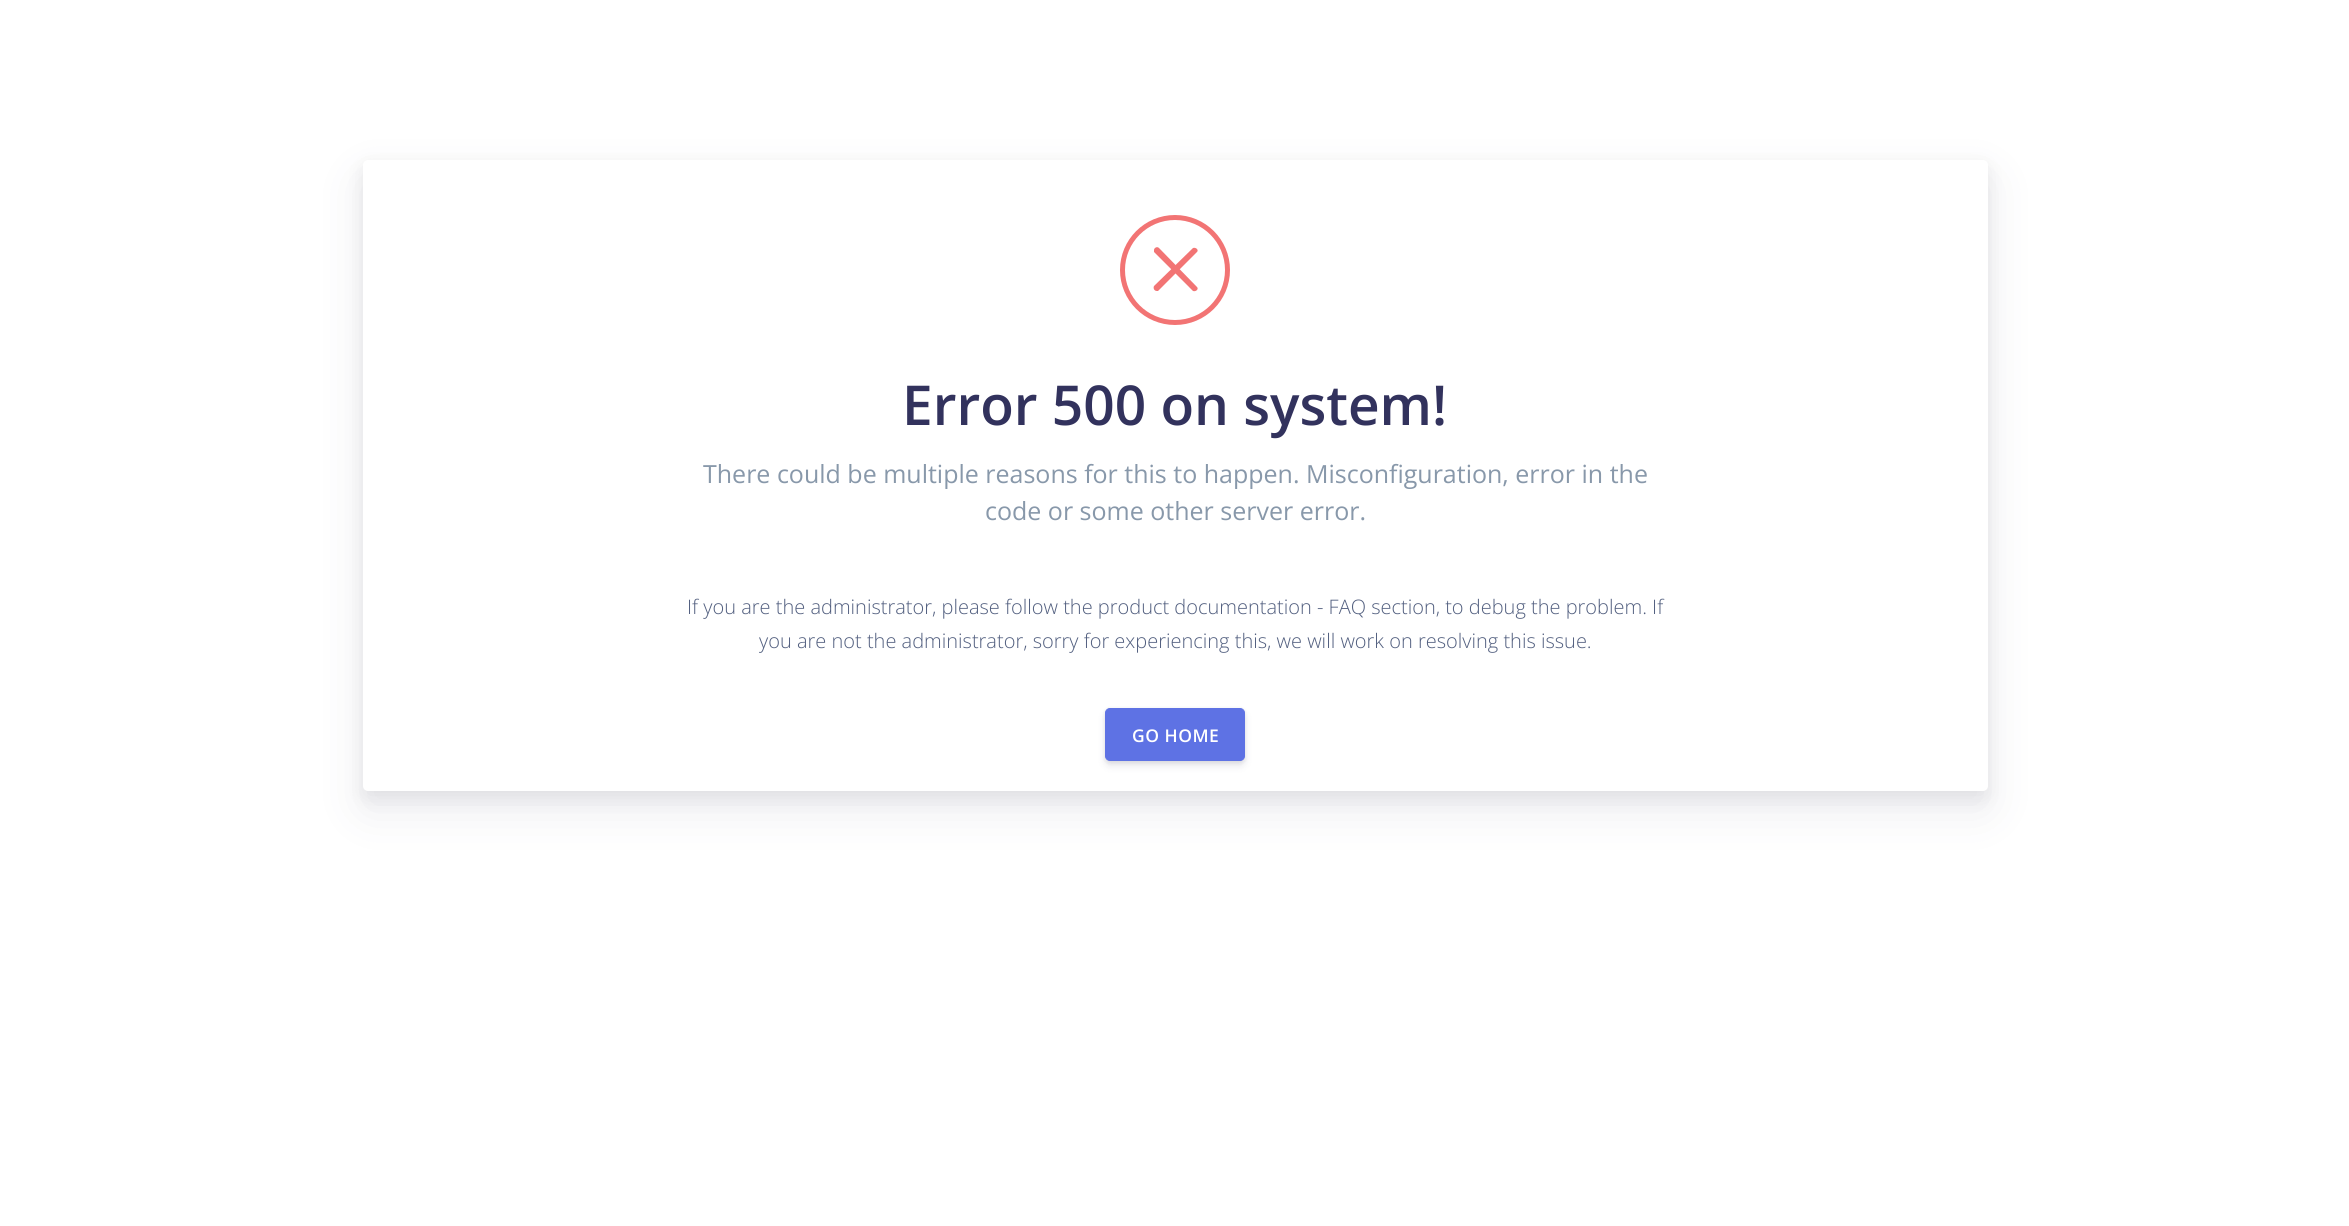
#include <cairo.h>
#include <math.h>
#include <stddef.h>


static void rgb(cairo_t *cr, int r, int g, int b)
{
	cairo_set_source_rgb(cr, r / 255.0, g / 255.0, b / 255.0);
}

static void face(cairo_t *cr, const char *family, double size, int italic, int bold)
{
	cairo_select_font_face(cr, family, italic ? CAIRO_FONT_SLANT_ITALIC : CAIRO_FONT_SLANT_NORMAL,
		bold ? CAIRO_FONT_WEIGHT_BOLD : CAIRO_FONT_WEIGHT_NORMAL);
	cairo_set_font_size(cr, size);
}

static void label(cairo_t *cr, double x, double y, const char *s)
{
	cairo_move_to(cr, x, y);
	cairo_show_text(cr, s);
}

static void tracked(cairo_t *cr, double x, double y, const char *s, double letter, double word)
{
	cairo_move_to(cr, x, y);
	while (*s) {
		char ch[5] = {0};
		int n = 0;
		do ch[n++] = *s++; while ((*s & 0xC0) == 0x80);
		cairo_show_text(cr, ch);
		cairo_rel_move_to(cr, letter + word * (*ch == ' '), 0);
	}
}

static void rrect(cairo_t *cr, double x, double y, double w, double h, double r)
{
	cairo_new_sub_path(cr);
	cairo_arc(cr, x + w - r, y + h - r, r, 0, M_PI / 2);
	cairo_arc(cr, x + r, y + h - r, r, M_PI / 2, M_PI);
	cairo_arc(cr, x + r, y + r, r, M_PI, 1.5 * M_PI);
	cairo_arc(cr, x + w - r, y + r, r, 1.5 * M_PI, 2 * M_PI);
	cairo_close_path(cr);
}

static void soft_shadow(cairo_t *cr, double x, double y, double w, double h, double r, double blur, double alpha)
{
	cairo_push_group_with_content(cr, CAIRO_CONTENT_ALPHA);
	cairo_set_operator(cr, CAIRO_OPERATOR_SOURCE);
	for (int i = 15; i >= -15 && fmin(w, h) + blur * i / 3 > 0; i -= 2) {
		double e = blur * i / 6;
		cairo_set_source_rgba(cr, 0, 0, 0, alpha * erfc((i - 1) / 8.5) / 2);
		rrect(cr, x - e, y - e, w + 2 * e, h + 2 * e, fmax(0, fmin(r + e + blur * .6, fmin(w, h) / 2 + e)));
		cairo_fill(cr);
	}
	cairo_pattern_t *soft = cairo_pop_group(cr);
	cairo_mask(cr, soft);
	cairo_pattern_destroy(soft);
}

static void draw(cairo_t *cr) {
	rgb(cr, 255, 255, 255);
	cairo_paint(cr);
	rgb(cr, 0, 0, 0);
	soft_shadow(cr, 363, 166, 1625, 632, 5, 9.5, 0.07);
	rgb(cr, 50, 50, 93);
	soft_shadow(cr, 363, 179, 1625, 631, 5, 22, 0.1);
	rgb(cr, 255, 255, 255);
	rrect(cr, 363, 160, 1625, 631, 5);
	cairo_fill(cr);
	cairo_arc(cr, 1175, 270, 52.5, 0, 2 * M_PI);
	rgb(cr, 242, 116, 116);
	cairo_set_line_width(cr, 5);
	cairo_stroke(cr);
	cairo_new_path(cr);
	cairo_move_to(cr, 1159, 248);
	cairo_line_to(cr, 1197, 287);
	cairo_curve_to(cr, 1199, 289, 1196, 292, 1193, 291);
	cairo_line_to(cr, 1154, 252);
	cairo_line_to(cr, 1154, 250);
	cairo_curve_to(cr, 1154, 248, 1157, 246, 1159, 248);
	cairo_close_path(cr);
	cairo_fill(cr);
	cairo_new_path(cr);
	cairo_move_to(cr, 1154, 286);
	cairo_line_to(cr, 1193, 248);
	cairo_curve_to(cr, 1196, 247, 1199, 250, 1197, 252);
	cairo_line_to(cr, 1158, 291);
	cairo_line_to(cr, 1157, 291);
	cairo_curve_to(cr, 1154, 291, 1153, 288, 1154, 286);
	cairo_close_path(cr);
	cairo_fill(cr);
	face(cr, "Open Sans SemiBold", 55, 0, 0);
	rgb(cr, 50, 50, 93);
	label(cr, 902, 425, "Error 500 on system!");
	face(cr, "Open Sans", 25, 0, 0);
	rgb(cr, 136, 152, 170);
	label(cr, 703, 483, "There could be multiple reasons for this to happen. Misconfiguration, error in the");
	label(cr, 985, 520, "code or some other server error.");
	face(cr, "Open Sans Light", 20, 0, 0);
	rgb(cr, 82, 95, 127);
	label(cr, 687, 614, "If you are the administrator, please follow the product documentation - FAQ section, to debug the problem. If");
	label(cr, 759, 648, "you are not the administrator, sorry for experiencing this, we will work on resolving this issue.");
	rgb(cr, 0, 0, 0);
	soft_shadow(cr, 1105, 709, 140, 54, 5, 2, 0.08);
	rgb(cr, 50, 50, 93);
	soft_shadow(cr, 1105, 713, 140, 53, 5, 4, 0.11);
	rgb(cr, 94, 114, 228);
	rrect(cr, 1105.5, 708.5, 139, 52, 4.5);
	cairo_fill_preserve(cr);
	cairo_set_line_width(cr, 1);
	cairo_stroke(cr);
	face(cr, "Open Sans SemiBold", 17.5, 0, 0);
	rgb(cr, 255, 255, 255);
	tracked(cr, 1132, 742, "GO HOME", 0.5, 0);
}

int main(void) {
	cairo_surface_t *surface = cairo_image_surface_create(CAIRO_FORMAT_RGB24, 2349, 1226);
	cairo_t *cr = cairo_create(surface);
	cairo_font_options_t *options = cairo_font_options_create();
	cairo_font_options_set_hint_metrics(options, CAIRO_HINT_METRICS_OFF);
	cairo_font_options_set_hint_style(options, CAIRO_HINT_STYLE_NONE);
	cairo_set_font_options(cr, options);
	cairo_set_miter_limit(cr, 4);
	draw(cr);
	cairo_surface_write_to_png(surface, "render.png");
	cairo_font_options_destroy(options);
	cairo_destroy(cr);
	cairo_surface_destroy(surface);
	return 0;
}
